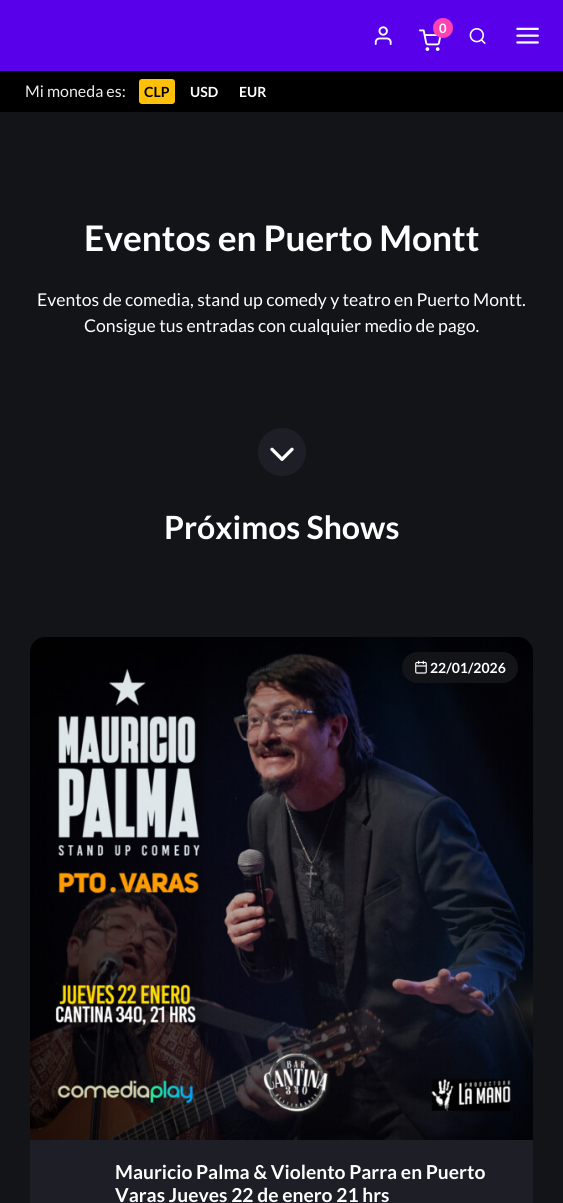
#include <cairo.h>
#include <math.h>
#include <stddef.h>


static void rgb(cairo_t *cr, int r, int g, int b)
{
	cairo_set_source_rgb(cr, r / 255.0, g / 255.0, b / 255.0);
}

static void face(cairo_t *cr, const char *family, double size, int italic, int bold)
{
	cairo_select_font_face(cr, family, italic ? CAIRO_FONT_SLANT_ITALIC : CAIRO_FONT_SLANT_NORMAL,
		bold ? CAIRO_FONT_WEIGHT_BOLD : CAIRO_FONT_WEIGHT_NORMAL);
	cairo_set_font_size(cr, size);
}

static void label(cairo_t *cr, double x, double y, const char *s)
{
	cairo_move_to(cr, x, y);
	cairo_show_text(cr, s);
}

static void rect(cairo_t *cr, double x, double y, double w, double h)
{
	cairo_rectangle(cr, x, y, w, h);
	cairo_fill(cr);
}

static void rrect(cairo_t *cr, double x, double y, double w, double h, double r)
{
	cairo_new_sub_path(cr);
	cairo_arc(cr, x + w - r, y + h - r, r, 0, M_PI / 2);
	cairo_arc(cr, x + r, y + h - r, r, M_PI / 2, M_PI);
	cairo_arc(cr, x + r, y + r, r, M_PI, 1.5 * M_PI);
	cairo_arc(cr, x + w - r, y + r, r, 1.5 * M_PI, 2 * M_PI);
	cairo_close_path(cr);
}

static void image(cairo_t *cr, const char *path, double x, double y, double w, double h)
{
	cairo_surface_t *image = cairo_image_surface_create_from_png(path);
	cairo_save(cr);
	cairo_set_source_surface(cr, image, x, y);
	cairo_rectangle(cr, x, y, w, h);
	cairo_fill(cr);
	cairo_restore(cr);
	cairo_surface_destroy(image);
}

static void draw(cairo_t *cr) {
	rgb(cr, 19, 20, 23);
	cairo_paint(cr);
	rgb(cr, 87, 0, 233);
	rect(cr, 0, 0, 563, 71);
	image(cr, "image0.png", 374, 26, 18, 19);
	image(cr, "image1.png", 419, 29, 22, 22);
	rgb(cr, 255, 65, 178);
	cairo_arc(cr, 443, 28, 10, 0, 2 * M_PI);
	cairo_fill(cr);
	face(cr, "Lato", 13, 0, 1);
	rgb(cr, 255, 255, 255);
	label(cr, 439, 33, "0");
	image(cr, "image2.png", 469, 28, 17, 16);
	image(cr, "image3.png", 516, 27, 23, 17);
	rgb(cr, 0, 0, 0);
	rect(cr, 0, 71, 563, 41);
	face(cr, "Lato", 16, 0, 0);
	rgb(cr, 238, 238, 238);
	label(cr, 25, 97, "Mi moneda es:");
	rgb(cr, 255, 193, 7);
	rrect(cr, 139, 79, 36, 25, 3);
	cairo_fill(cr);
	face(cr, "Lato", 14, 0, 1);
	rgb(cr, 0, 0, 0);
	label(cr, 144, 97, "CLP");
	rgb(cr, 255, 255, 255);
	label(cr, 190, 97, "USD");
	label(cr, 239, 97, "EUR");
	face(cr, "Lato", 35.25, 0, 1);
	label(cr, 84, 251, "Eventos en Puerto Montt");
	face(cr, "Lato", 17.6, 0, 0);
	label(cr, 37, 306, "Eventos de comedia, stand up comedy y teatro en Puerto Montt.");
	label(cr, 84, 332, "Consigue tus entradas con cualquier medio de pago.");
	rgb(cr, 30, 31, 38);
	cairo_new_path(cr);
	cairo_arc(cr, 282, 452, 24, 0, 2 * M_PI);
	cairo_fill(cr);
	image(cr, "image4.png", 270, 447, 24, 14);
	face(cr, "Lato", 32, 0, 1);
	rgb(cr, 255, 255, 255);
	label(cr, 164, 539, "Próximos Shows");
	rgb(cr, 30, 31, 38);
	rrect(cr, 30, 637, 503, 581, 15);
	cairo_fill(cr);
	image(cr, "image5.png", 30, 637, 503, 503);
	rgb(cr, 19, 20, 23);
	rrect(cr, 402, 652, 116, 31, 15.5);
	cairo_fill(cr);
	image(cr, "image6.png", 415, 660, 12, 14);
	face(cr, "Lato", 14, 0, 1);
	rgb(cr, 255, 255, 255);
	label(cr, 430, 673, "22/01/2026");
	face(cr, "Lato", 19.25, 0, 1);
	label(cr, 115, 1179, "Mauricio Palma & Violento Parra en Puerto");
	label(cr, 115, 1202, "Varas Jueves 22 de enero 21 hrs");
}

int main(void) {
	cairo_surface_t *surface = cairo_image_surface_create(CAIRO_FORMAT_RGB24, 563, 1203);
	cairo_t *cr = cairo_create(surface);
	cairo_font_options_t *options = cairo_font_options_create();
	cairo_font_options_set_hint_metrics(options, CAIRO_HINT_METRICS_OFF);
	cairo_font_options_set_hint_style(options, CAIRO_HINT_STYLE_NONE);
	cairo_set_font_options(cr, options);
	cairo_set_miter_limit(cr, 4);
	draw(cr);
	cairo_surface_write_to_png(surface, "render.png");
	cairo_font_options_destroy(options);
	cairo_destroy(cr);
	cairo_surface_destroy(surface);
	return 0;
}
